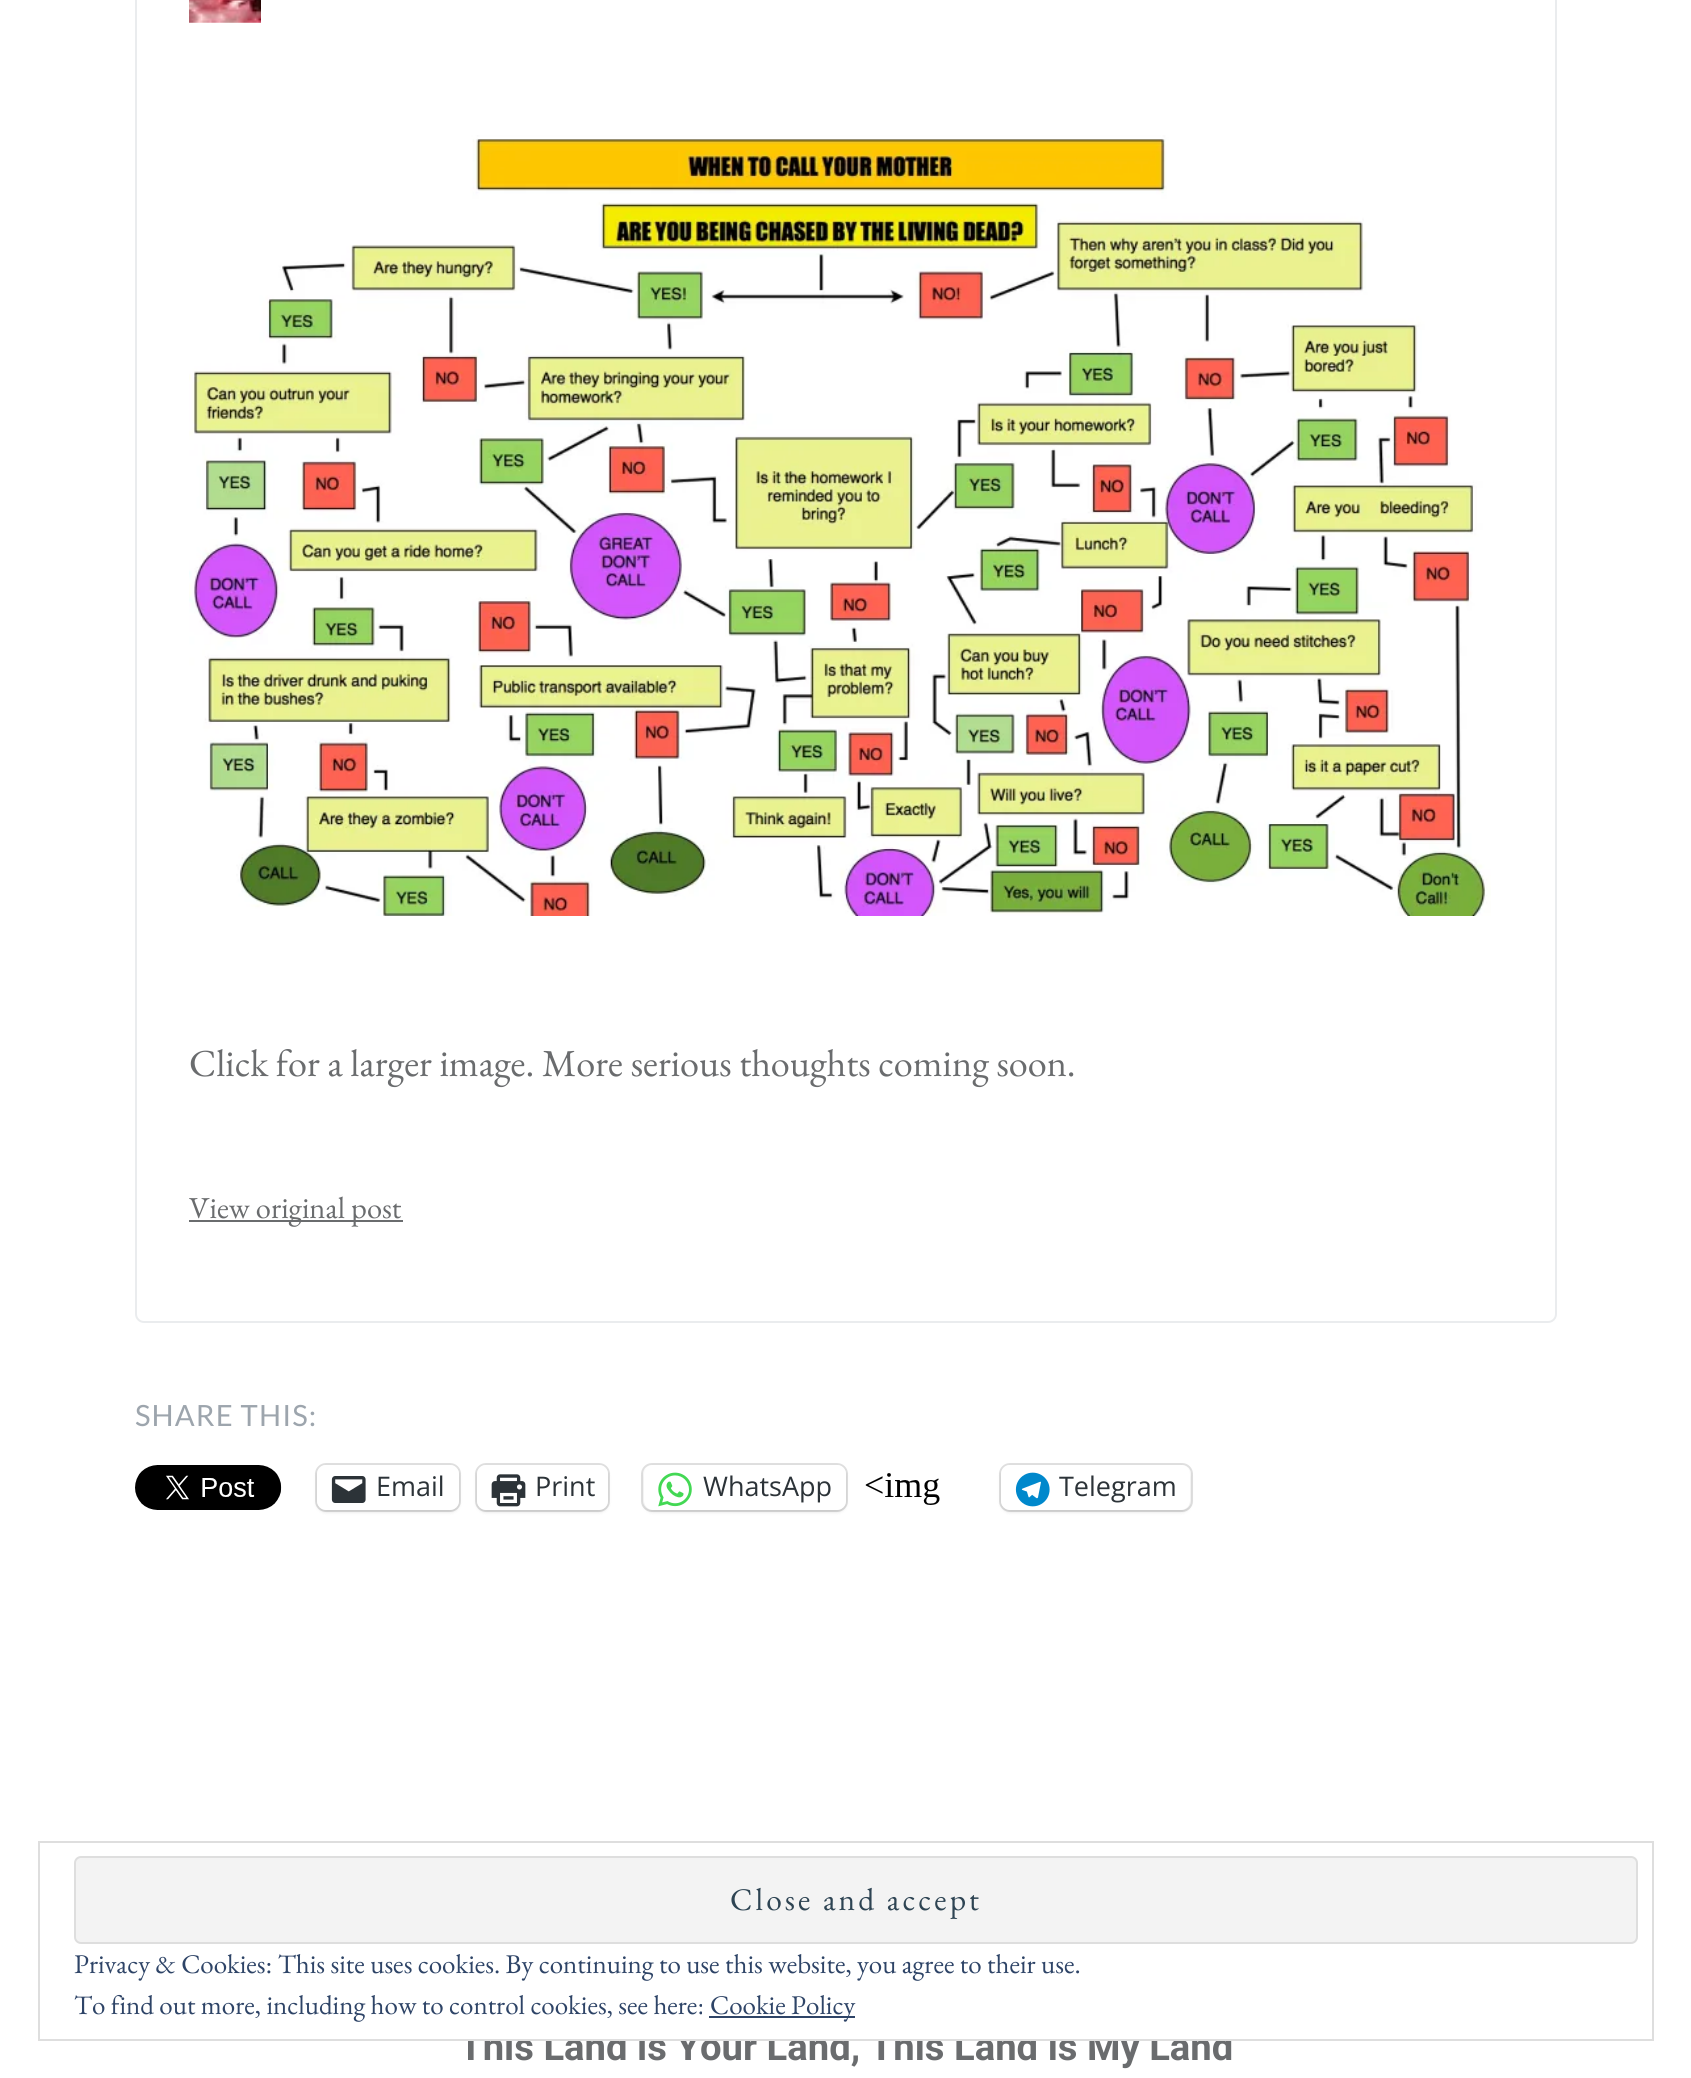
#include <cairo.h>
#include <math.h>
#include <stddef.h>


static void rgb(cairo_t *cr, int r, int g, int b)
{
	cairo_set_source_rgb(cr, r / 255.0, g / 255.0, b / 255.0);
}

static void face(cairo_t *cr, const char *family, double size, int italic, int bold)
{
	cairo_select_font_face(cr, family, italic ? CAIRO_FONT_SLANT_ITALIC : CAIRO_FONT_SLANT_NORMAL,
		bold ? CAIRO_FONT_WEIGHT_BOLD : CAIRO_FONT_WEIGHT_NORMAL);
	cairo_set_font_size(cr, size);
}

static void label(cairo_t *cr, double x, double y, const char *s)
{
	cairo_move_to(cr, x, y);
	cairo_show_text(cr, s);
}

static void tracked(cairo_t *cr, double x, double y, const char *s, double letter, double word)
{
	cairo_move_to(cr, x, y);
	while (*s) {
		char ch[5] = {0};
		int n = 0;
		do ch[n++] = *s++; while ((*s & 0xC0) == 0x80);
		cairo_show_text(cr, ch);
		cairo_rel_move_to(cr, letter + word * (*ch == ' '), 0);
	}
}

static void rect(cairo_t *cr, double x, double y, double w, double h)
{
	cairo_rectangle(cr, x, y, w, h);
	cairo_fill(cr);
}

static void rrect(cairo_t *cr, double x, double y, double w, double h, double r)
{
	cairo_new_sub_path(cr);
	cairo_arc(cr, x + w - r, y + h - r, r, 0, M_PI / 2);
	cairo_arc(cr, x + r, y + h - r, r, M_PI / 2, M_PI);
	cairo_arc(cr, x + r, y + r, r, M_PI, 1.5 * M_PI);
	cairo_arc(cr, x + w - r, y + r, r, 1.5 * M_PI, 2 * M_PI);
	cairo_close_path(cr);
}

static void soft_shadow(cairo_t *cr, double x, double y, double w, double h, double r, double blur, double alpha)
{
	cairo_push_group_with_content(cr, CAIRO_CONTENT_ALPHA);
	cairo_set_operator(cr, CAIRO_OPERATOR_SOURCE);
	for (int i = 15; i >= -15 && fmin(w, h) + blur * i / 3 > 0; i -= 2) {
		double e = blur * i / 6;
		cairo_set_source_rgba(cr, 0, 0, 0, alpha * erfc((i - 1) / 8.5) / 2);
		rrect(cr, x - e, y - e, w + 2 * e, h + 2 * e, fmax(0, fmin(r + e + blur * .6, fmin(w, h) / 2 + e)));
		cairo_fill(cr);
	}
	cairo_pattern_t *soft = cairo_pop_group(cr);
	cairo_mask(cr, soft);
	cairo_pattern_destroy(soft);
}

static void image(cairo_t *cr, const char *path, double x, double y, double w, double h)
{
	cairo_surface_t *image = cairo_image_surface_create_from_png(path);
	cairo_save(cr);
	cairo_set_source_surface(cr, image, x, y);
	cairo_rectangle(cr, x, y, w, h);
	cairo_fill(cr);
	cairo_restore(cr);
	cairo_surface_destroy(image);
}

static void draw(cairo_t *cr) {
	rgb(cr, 255, 255, 255);
	cairo_paint(cr);
	rrect(cr, 136, -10, 1420, 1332, 8);
	cairo_set_source_rgba(cr, 0.18, 0.267, 0.325, 0.1);
	cairo_stroke(cr);
	image(cr, "image0.png", 189, 0, 72, 23);
	image(cr, "image1.png", 189, 135, 1302, 781);
	face(cr, "EB Garamond", 38.25, 0, 0);
	rgb(cr, 106, 108, 110);
	label(cr, 189, 1076, "Click for a larger image. More serious thoughts coming soon.");
	rect(cr, 189, 1220, 214, 2);
	face(cr, "EB Garamond", 30.5, 0, 0);
	label(cr, 189, 1218, "View original post");
	face(cr, "Lato", 29.25, 0, 0);
	rgb(cr, 157, 165, 173);
	tracked(cr, 135, 1426, "SHARE THIS:", 1.1, 0);
	image(cr, "image2.png", 135, 1465, 147, 45);
	rrect(cr, 316, 1464, 144, 47, 10);
	rgb(cr, 224, 224, 224);
	cairo_stroke(cr);
	rgb(cr, 0, 0, 0);
	soft_shadow(cr, 317, 1467, 142, 45, 9, 2, 0.12);
	rgb(cr, 255, 255, 255);
	rrect(cr, 317, 1465, 142, 45, 9);
	cairo_fill(cr);
	image(cr, "image3.png", 331, 1476, 35, 27);
	face(cr, "Open Sans", 27, 0, 0);
	rgb(cr, 44, 51, 56);
	label(cr, 376, 1496, "Email");
	rrect(cr, 476, 1464, 133, 47, 10);
	rgb(cr, 224, 224, 224);
	cairo_stroke(cr);
	rgb(cr, 0, 0, 0);
	soft_shadow(cr, 477, 1467, 131, 45, 9, 2, 0.12);
	rgb(cr, 255, 255, 255);
	rrect(cr, 477, 1465, 131, 45, 9);
	cairo_fill(cr);
	image(cr, "image4.png", 491, 1474, 35, 33);
	rgb(cr, 44, 51, 56);
	label(cr, 535, 1496, "Print");
	rrect(cr, 642, 1464, 205, 47, 10);
	rgb(cr, 224, 224, 224);
	cairo_stroke(cr);
	rgb(cr, 0, 0, 0);
	soft_shadow(cr, 644, 1467, 202, 45, 9, 2, 0.12);
	rgb(cr, 255, 255, 255);
	rrect(cr, 644, 1465, 202, 45, 9);
	cairo_fill(cr);
	image(cr, "image5.png", 658, 1472, 34, 35);
	rgb(cr, 44, 51, 56);
	label(cr, 703, 1496, "WhatsApp");
	image(cr, "image6.png", 865, 1473, 75, 32);
	rrect(cr, 1000, 1464, 192, 47, 10);
	rgb(cr, 224, 224, 224);
	cairo_stroke(cr);
	rgb(cr, 0, 0, 0);
	soft_shadow(cr, 1001, 1467, 189, 45, 9, 2, 0.12);
	rgb(cr, 255, 255, 255);
	rrect(cr, 1001, 1465, 189, 45, 9);
	cairo_fill(cr);
	image(cr, "image7.png", 1015, 1472, 35, 35);
	rgb(cr, 44, 51, 56);
	label(cr, 1059, 1496, "Telegram");
	face(cr, "Roboto", 38.25, 0, 1);
	rgb(cr, 106, 108, 110);
	label(cr, 459, 2060, "This Land is Your Land, This Land is My Land");
	rgb(cr, 255, 255, 255);
	rect(cr, 459, 2031, 773, 8);
	cairo_rectangle(cr, 39, 1842, 1614, 198);
	rgb(cr, 222, 222, 222);
	cairo_stroke(cr);
	rgb(cr, 243, 243, 243);
	rrect(cr, 75, 1857, 1562, 86, 6);
	cairo_fill_preserve(cr);
	rgb(cr, 222, 222, 222);
	cairo_stroke(cr);
	face(cr, "EB Garamond", 31.5, 0, 0);
	rgb(cr, 46, 68, 83);
	tracked(cr, 730, 1910, "Close and accept", 3.1, 0);
	face(cr, "EB Garamond", 27, 0, 0);
	rgb(cr, 46, 68, 103);
	label(cr, 74, 1973, "Privacy & Cookies: This site uses cookies. By continuing to use this website, you agree to their use.");
	label(cr, 74, 2014, "To find out more, including how to control cookies, see here:");
	rect(cr, 709, 2016, 146, 2);
	label(cr, 710, 2014, "Cookie Policy");
}

int main(void) {
	cairo_surface_t *surface = cairo_image_surface_create(CAIRO_FORMAT_RGB24, 1691, 2078);
	cairo_t *cr = cairo_create(surface);
	cairo_font_options_t *options = cairo_font_options_create();
	cairo_font_options_set_hint_metrics(options, CAIRO_HINT_METRICS_OFF);
	cairo_font_options_set_hint_style(options, CAIRO_HINT_STYLE_NONE);
	cairo_set_font_options(cr, options);
	cairo_set_miter_limit(cr, 4);
	draw(cr);
	cairo_surface_write_to_png(surface, "render.png");
	cairo_font_options_destroy(options);
	cairo_destroy(cr);
	cairo_surface_destroy(surface);
	return 0;
}
